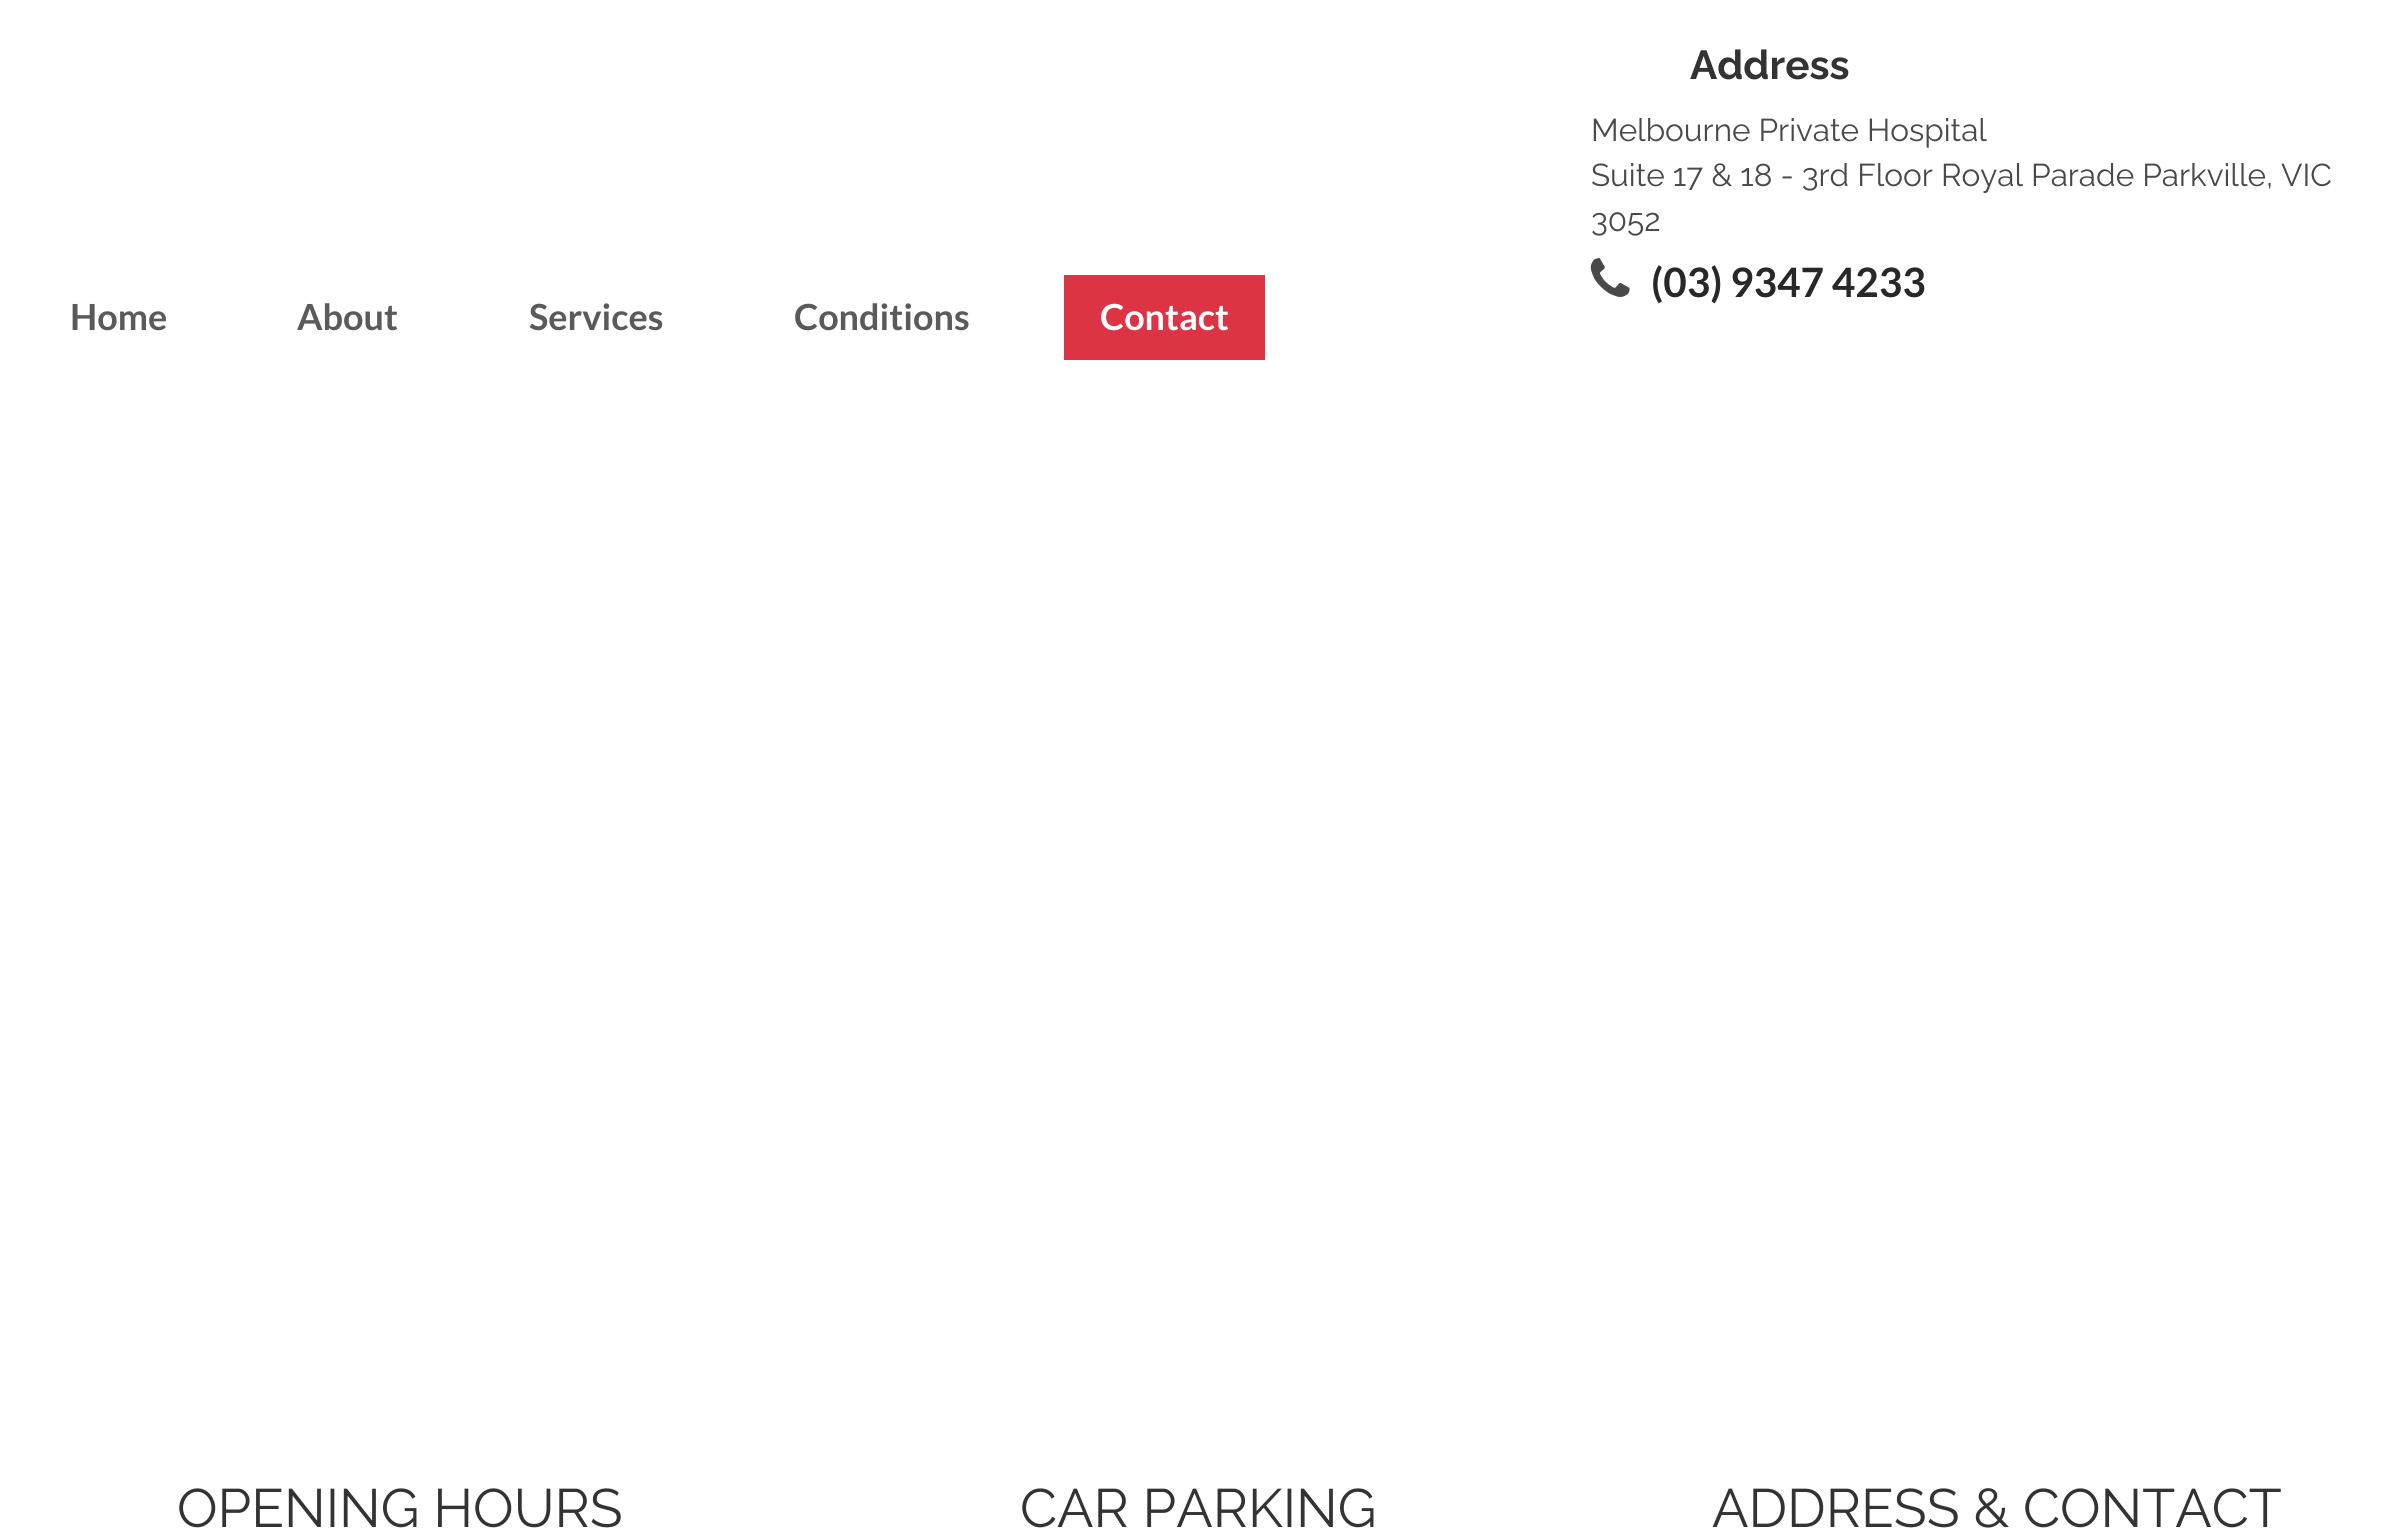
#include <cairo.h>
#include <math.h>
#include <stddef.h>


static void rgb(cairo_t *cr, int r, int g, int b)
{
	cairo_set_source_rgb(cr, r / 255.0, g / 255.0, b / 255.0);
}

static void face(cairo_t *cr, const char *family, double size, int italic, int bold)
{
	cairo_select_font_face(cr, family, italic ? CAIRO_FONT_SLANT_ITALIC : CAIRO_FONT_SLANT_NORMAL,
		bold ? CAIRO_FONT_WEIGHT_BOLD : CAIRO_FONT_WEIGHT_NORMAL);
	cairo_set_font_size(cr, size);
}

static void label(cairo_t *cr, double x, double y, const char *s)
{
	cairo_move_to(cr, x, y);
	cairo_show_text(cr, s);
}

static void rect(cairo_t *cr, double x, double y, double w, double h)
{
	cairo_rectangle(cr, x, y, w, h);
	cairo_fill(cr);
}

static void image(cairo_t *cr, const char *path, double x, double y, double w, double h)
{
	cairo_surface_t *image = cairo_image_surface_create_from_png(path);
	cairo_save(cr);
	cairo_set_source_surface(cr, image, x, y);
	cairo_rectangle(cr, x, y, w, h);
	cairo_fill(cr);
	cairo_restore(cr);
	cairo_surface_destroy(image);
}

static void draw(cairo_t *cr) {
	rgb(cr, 255, 255, 255);
	cairo_paint(cr);
	face(cr, "Raleway", 40.5, 0, 1);
	rgb(cr, 51, 51, 51);
	label(cr, 1690, 79, "Address");
	face(cr, "Raleway", 31.5, 0, 0);
	rgb(cr, 73, 73, 73);
	label(cr, 1591, 141, "Melbourne Private Hospital");
	label(cr, 1591, 186, "Suite 17 & 18 - 3rd Floor Royal Parade Parkville, VIC");
	label(cr, 1591, 231, "3052");
	image(cr, "image0.png", 1590, 258, 40, 39);
	face(cr, "Lato", 40.5, 0, 1);
	rgb(cr, 41, 40, 40);
	label(cr, 1651, 297, "(03) 9347 4233");
	face(cr, "Lato", 36, 0, 1);
	rgb(cr, 90, 90, 90);
	label(cr, 70, 330, "Home");
	label(cr, 297, 330, "About");
	label(cr, 529, 330, "Services");
	label(cr, 794, 330, "Conditions");
	rgb(cr, 220, 52, 68);
	rect(cr, 1064, 275, 201, 85);
	rgb(cr, 255, 255, 255);
	label(cr, 1100, 330, "Contact");
	face(cr, "Raleway", 54, 0, 0);
	rgb(cr, 51, 51, 51);
	label(cr, 177, 1527, "OPENING HOURS");
	label(cr, 1020, 1527, "CAR PARKING");
	label(cr, 1712, 1527, "ADDRESS & CONTACT");
}

int main(void) {
	cairo_surface_t *surface = cairo_image_surface_create(CAIRO_FORMAT_RGB24, 2395, 1537);
	cairo_t *cr = cairo_create(surface);
	cairo_font_options_t *options = cairo_font_options_create();
	cairo_font_options_set_hint_metrics(options, CAIRO_HINT_METRICS_OFF);
	cairo_font_options_set_hint_style(options, CAIRO_HINT_STYLE_NONE);
	cairo_set_font_options(cr, options);
	cairo_set_miter_limit(cr, 4);
	draw(cr);
	cairo_surface_write_to_png(surface, "render.png");
	cairo_font_options_destroy(options);
	cairo_destroy(cr);
	cairo_surface_destroy(surface);
	return 0;
}
